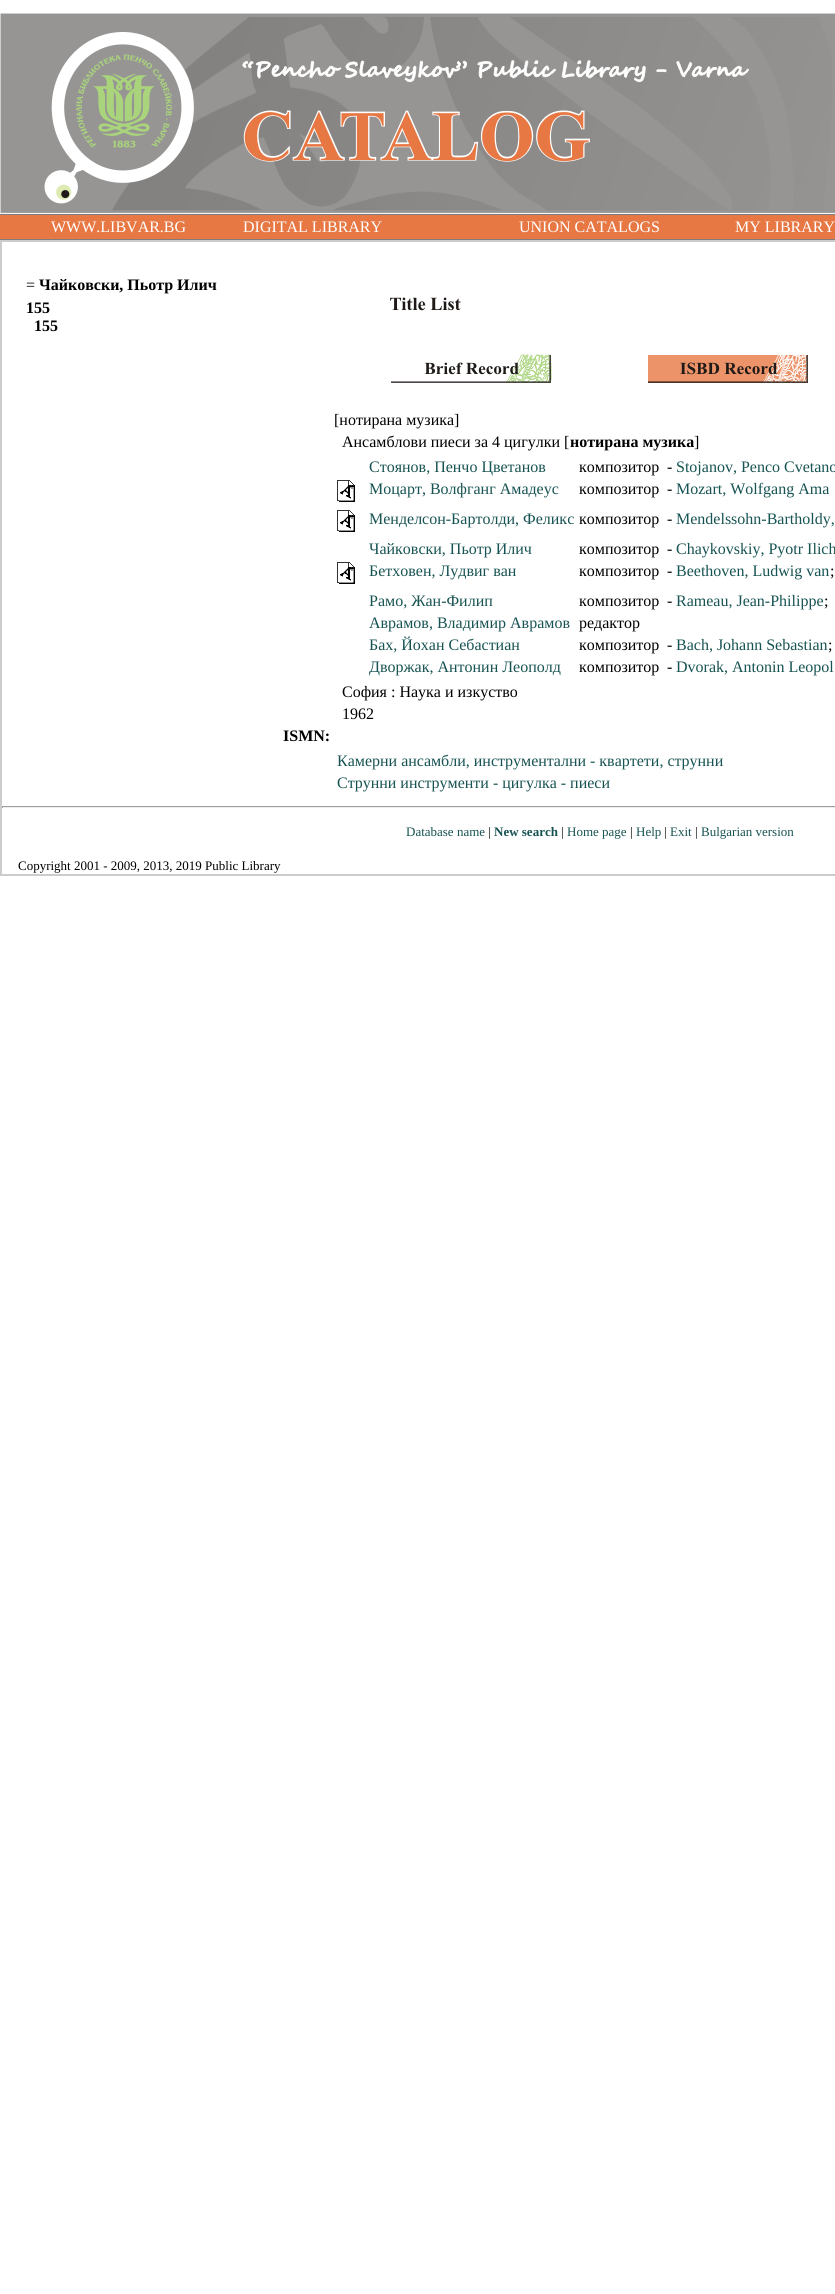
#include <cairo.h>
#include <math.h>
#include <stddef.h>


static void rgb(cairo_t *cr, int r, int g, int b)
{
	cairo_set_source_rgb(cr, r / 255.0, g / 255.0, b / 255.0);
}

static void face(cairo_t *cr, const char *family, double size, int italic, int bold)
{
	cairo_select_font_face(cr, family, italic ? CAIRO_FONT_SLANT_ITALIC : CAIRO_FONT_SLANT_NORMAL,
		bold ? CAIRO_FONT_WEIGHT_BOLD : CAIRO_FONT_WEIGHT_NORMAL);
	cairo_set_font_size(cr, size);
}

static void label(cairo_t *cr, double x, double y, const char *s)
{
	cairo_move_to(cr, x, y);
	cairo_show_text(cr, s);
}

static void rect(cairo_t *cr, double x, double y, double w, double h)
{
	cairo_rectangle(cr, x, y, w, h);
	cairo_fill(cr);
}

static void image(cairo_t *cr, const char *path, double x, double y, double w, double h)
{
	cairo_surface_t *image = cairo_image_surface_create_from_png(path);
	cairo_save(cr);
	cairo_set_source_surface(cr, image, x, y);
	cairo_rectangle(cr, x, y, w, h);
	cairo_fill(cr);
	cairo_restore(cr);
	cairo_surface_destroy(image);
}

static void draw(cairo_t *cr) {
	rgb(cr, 255, 255, 255);
	cairo_paint(cr);
	image(cr, "image0.png", 0, 13, 835, 201);
	rgb(cr, 231, 120, 68);
	rect(cr, 0, 215, 835, 24);
	rgb(cr, 125, 125, 125);
	rect(cr, 0, 214, 835, 1);
	rect(cr, 0, 239, 835, 1);
	face(cr, "Liberation Serif", 16, 0, 0);
	rgb(cr, 255, 255, 255);
	label(cr, 51, 232, "WWW.LIBVAR.BG");
	label(cr, 243, 232, "DIGITAL LIBRARY");
	label(cr, 519, 232, "UNION CATALOGS");
	label(cr, 735, 232, "MY LIBRARY");
	cairo_rectangle(cr, 0.5, 240.5, 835, 635);
	rgb(cr, 204, 204, 204);
	cairo_set_line_width(cr, 1);
	cairo_stroke(cr);
	cairo_rectangle(cr, 1.5, 241.5, 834, 633);
	cairo_stroke(cr);
	rgb(cr, 0, 0, 0);
	label(cr, 26, 290, "=");
	face(cr, "Liberation Serif", 16, 0, 1);
	label(cr, 39, 290, "Чайковски, Пьотр Илич");
	label(cr, 26, 313, "155");
	image(cr, "image1.png", 390, 297, 71, 14);
	label(cr, 34, 331, "155");
	image(cr, "image2.png", 391, 354, 161, 29);
	image(cr, "image3.png", 648, 355, 160, 28);
	face(cr, "Liberation Serif", 16, 0, 0);
	label(cr, 334, 425, "[нотирана музика]");
	label(cr, 342, 447, "Ансамблови пиеси за 4 цигулки [");
	face(cr, "Liberation Serif", 16, 0, 1);
	label(cr, 570, 447, "нотирана музика");
	face(cr, "Liberation Serif", 16, 0, 0);
	label(cr, 694, 447, "]");
	rgb(cr, 23, 83, 82);
	label(cr, 369, 472, "Стоянов, Пенчо Цветанов");
	rgb(cr, 0, 0, 0);
	label(cr, 579, 472, "композитор");
	label(cr, 667, 472, "-");
	rgb(cr, 23, 83, 82);
	label(cr, 676, 472, "Stojanov, Penco Cvetano");
	image(cr, "image4.png", 337, 480, 18, 22);
	label(cr, 369, 494, "Моцарт, Волфганг Амадеус");
	rgb(cr, 0, 0, 0);
	label(cr, 579, 494, "композитор");
	label(cr, 667, 494, "-");
	rgb(cr, 23, 83, 82);
	label(cr, 676, 494, "Mozart, Wolfgang Ama");
	image(cr, "image4.png", 337, 510, 18, 22);
	label(cr, 369, 524, "Менделсон-Бартолди, Феликс");
	rgb(cr, 0, 0, 0);
	label(cr, 579, 524, "композитор");
	label(cr, 667, 524, "-");
	rgb(cr, 23, 83, 82);
	label(cr, 676, 524, "Mendelssohn-Bartholdy,");
	label(cr, 369, 554, "Чайковски, Пьотр Илич");
	rgb(cr, 0, 0, 0);
	label(cr, 579, 554, "композитор");
	label(cr, 667, 554, "-");
	rgb(cr, 23, 83, 82);
	label(cr, 676, 554, "Chaykovskiy, Pyotr Ilich");
	image(cr, "image4.png", 337, 562, 18, 22);
	label(cr, 369, 576, "Бетховен, Лудвиг ван");
	rgb(cr, 0, 0, 0);
	label(cr, 579, 576, "композитор");
	label(cr, 667, 576, "-");
	rgb(cr, 23, 83, 82);
	label(cr, 676, 576, "Beethoven, Ludwig van");
	rgb(cr, 0, 0, 0);
	label(cr, 830, 576, ";");
	rgb(cr, 23, 83, 82);
	label(cr, 369, 606, "Рамо, Жан-Филип");
	rgb(cr, 0, 0, 0);
	label(cr, 579, 606, "композитор");
	label(cr, 667, 606, "-");
	rgb(cr, 23, 83, 82);
	label(cr, 676, 606, "Rameau, Jean-Philippe");
	rgb(cr, 0, 0, 0);
	label(cr, 824, 606, ";");
	rgb(cr, 23, 83, 82);
	label(cr, 369, 628, "Аврамов, Владимир Аврамов");
	rgb(cr, 0, 0, 0);
	label(cr, 579, 628, "редактор");
	rgb(cr, 23, 83, 82);
	label(cr, 369, 650, "Бах, Йохан Себастиан");
	rgb(cr, 0, 0, 0);
	label(cr, 579, 650, "композитор");
	label(cr, 667, 650, "-");
	rgb(cr, 23, 83, 82);
	label(cr, 676, 650, "Bach, Johann Sebastian");
	rgb(cr, 0, 0, 0);
	label(cr, 828, 650, ";");
	rgb(cr, 23, 83, 82);
	label(cr, 369, 672, "Дворжак, Антонин Леополд");
	rgb(cr, 0, 0, 0);
	label(cr, 579, 672, "композитор");
	label(cr, 667, 672, "-");
	rgb(cr, 23, 83, 82);
	label(cr, 676, 672, "Dvorak, Antonin Leopol");
	rgb(cr, 0, 0, 0);
	label(cr, 342, 697, "София : Наука и изкуство");
	label(cr, 342, 719, "1962");
	face(cr, "Liberation Serif", 16, 0, 1);
	label(cr, 283, 741, "ISMN:");
	face(cr, "Liberation Serif", 16, 0, 0);
	rgb(cr, 23, 83, 82);
	label(cr, 337, 766, "Камерни ансамбли, инструментални - квартети, струнни");
	label(cr, 337, 788, "Струнни инструменти - цигулка - пиеси");
	rgb(cr, 159, 159, 159);
	rect(cr, 2, 806, 833, 1);
	rgb(cr, 238, 238, 238);
	rect(cr, 2, 807, 833, 1);
	rgb(cr, 159, 159, 159);
	rect(cr, 2, 806, 1, 2);
	face(cr, "Liberation Serif", 13, 0, 0);
	rgb(cr, 23, 83, 82);
	label(cr, 406, 836, "Database name");
	rgb(cr, 0, 0, 0);
	label(cr, 488, 836, "|");
	face(cr, "Liberation Serif", 13, 0, 1);
	rgb(cr, 23, 83, 82);
	label(cr, 494, 836, "New search");
	face(cr, "Liberation Serif", 13, 0, 0);
	rgb(cr, 0, 0, 0);
	label(cr, 561, 836, "|");
	rgb(cr, 23, 83, 82);
	label(cr, 567, 836, "Home page");
	rgb(cr, 0, 0, 0);
	label(cr, 630, 836, "|");
	rgb(cr, 23, 83, 82);
	label(cr, 636, 836, "Help");
	rgb(cr, 0, 0, 0);
	label(cr, 664, 836, "|");
	rgb(cr, 23, 83, 82);
	label(cr, 670, 836, "Exit");
	rgb(cr, 0, 0, 0);
	label(cr, 695, 836, "|");
	rgb(cr, 23, 83, 82);
	label(cr, 701, 836, "Bulgarian version");
	rgb(cr, 0, 0, 0);
	label(cr, 18, 870, "Copyright 2001 - 2009, 2013, 2019 Public Library");
}

int main(void) {
	cairo_surface_t *surface = cairo_image_surface_create(CAIRO_FORMAT_RGB24, 835, 2294);
	cairo_t *cr = cairo_create(surface);
	cairo_font_options_t *options = cairo_font_options_create();
	cairo_font_options_set_hint_metrics(options, CAIRO_HINT_METRICS_OFF);
	cairo_font_options_set_hint_style(options, CAIRO_HINT_STYLE_NONE);
	cairo_set_font_options(cr, options);
	cairo_set_miter_limit(cr, 4);
	draw(cr);
	cairo_surface_write_to_png(surface, "render.png");
	cairo_font_options_destroy(options);
	cairo_destroy(cr);
	cairo_surface_destroy(surface);
	return 0;
}
